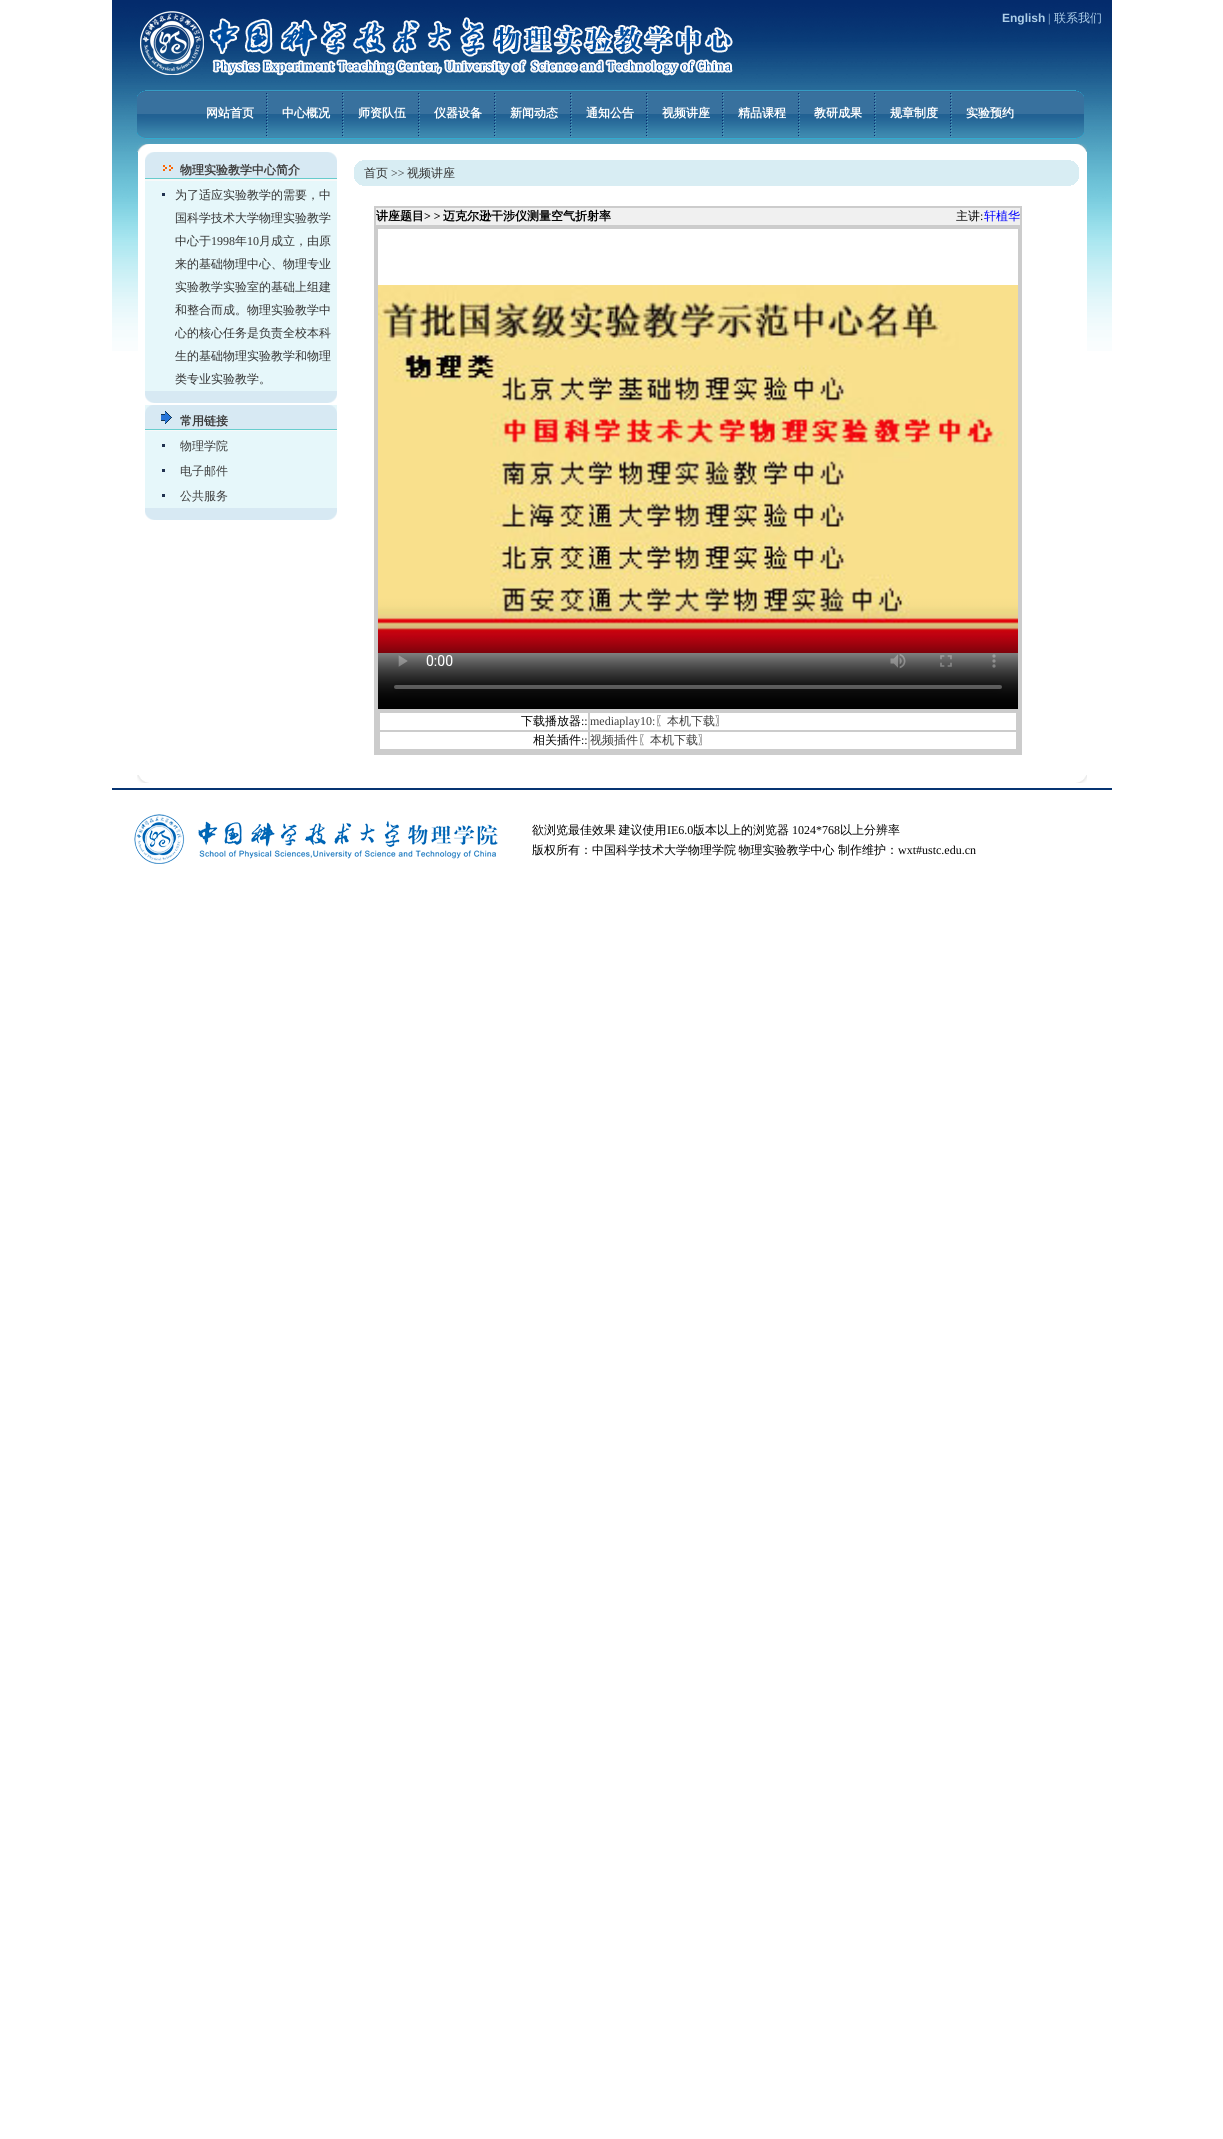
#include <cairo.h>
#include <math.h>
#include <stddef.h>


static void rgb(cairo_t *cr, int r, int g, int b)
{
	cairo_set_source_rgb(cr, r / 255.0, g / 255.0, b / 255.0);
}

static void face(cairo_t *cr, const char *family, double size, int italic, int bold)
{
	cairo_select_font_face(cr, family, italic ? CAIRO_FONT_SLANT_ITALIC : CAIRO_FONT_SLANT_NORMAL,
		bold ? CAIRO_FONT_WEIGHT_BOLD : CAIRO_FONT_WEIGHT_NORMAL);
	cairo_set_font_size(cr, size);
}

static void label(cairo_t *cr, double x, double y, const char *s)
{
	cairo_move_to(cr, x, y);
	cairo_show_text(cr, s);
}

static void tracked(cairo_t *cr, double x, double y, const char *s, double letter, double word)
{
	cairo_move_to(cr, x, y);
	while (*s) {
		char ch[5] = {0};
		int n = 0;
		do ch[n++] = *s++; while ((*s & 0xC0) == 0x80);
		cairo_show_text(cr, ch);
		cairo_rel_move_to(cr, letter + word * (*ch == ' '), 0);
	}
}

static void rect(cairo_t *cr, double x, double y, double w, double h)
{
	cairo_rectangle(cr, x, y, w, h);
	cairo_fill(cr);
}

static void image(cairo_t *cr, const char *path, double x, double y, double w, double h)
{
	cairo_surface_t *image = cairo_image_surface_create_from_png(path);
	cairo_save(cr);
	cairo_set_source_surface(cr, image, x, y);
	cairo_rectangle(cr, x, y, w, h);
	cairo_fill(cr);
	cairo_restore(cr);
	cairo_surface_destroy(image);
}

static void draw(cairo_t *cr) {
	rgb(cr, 255, 255, 255);
	cairo_paint(cr);
	image(cr, "image0.png", 112, 0, 1000, 351);
	image(cr, "image1.png", 140, 11, 593, 65);
	face(cr, "Liberation Sans", 12, 0, 1);
	rgb(cr, 174, 207, 233);
	label(cr, 1002, 22, "English");
	face(cr, "Liberation Serif", 12, 0, 0);
	label(cr, 1048, 22, "|");
	face(cr, "WenQuanYi Zen Hei Medium", 12, 0, 0);
	label(cr, 1054, 22, "联系我们");
	image(cr, "image2.png", 137, 91, 8, 47);
	image(cr, "image3.png", 145, 90, 930, 49);
	face(cr, "WenQuanYi Zen Hei", 12, 0, 1);
	rgb(cr, 255, 255, 255);
	label(cr, 206, 117, "网站首页");
	image(cr, "image4.png", 266, 93, 2, 44);
	label(cr, 282, 117, "中心概况");
	image(cr, "image4.png", 342, 93, 2, 44);
	label(cr, 358, 117, "师资队伍");
	image(cr, "image4.png", 418, 93, 2, 44);
	label(cr, 434, 117, "仪器设备");
	image(cr, "image4.png", 494, 93, 2, 44);
	label(cr, 510, 117, "新闻动态");
	image(cr, "image4.png", 570, 93, 2, 44);
	label(cr, 586, 117, "通知公告");
	image(cr, "image4.png", 646, 93, 2, 44);
	label(cr, 662, 117, "视频讲座");
	image(cr, "image4.png", 722, 93, 2, 44);
	label(cr, 738, 117, "精品课程");
	image(cr, "image4.png", 798, 93, 2, 44);
	label(cr, 814, 117, "教研成果");
	image(cr, "image4.png", 874, 93, 2, 44);
	label(cr, 890, 117, "规章制度");
	image(cr, "image4.png", 950, 93, 2, 44);
	label(cr, 966, 117, "实验预约");
	image(cr, "image5.png", 1075, 90, 9, 49);
	image(cr, "image6.png", 137, 144, 950, 8);
	rect(cr, 138, 152, 949, 199);
	rgb(cr, 230, 247, 250);
	rect(cr, 145, 181, 192, 210);
	image(cr, "image7.png", 145, 152, 192, 29);
	rgb(cr, 61, 61, 61);
	label(cr, 180, 174, "物理实验教学中心简介");
	rgb(cr, 32, 49, 79);
	rect(cr, 162, 193, 3, 3);
	face(cr, "WenQuanYi Zen Hei Medium", 12, 0, 0);
	rgb(cr, 51, 51, 51);
	label(cr, 175, 199, "为了适应实验教学的需要，中");
	label(cr, 175, 222, "国科学技术大学物理实验教学");
	label(cr, 175, 245, "中心于");
	face(cr, "Liberation Serif", 12, 0, 0);
	label(cr, 211, 245, "1998");
	face(cr, "WenQuanYi Zen Hei Medium", 12, 0, 0);
	label(cr, 235, 245, "年");
	face(cr, "Liberation Serif", 12, 0, 0);
	label(cr, 247, 245, "10");
	face(cr, "WenQuanYi Zen Hei Medium", 12, 0, 0);
	label(cr, 259, 245, "月成立，由原");
	label(cr, 175, 268, "来的基础物理中心、物理专业");
	label(cr, 175, 291, "实验教学实验室的基础上组建");
	label(cr, 175, 314, "和整合而成。物理实验教学中");
	label(cr, 175, 337, "心的核心任务是负责全校本科");
	label(cr, 175, 360, "生的基础物理实验教学和物理");
	label(cr, 175, 383, "类专业实验教学。");
	image(cr, "image8.png", 145, 391, 192, 12);
	rgb(cr, 230, 247, 250);
	rect(cr, 145, 431, 192, 77);
	image(cr, "image9.png", 145, 405, 192, 26);
	face(cr, "WenQuanYi Zen Hei", 12, 0, 1);
	rgb(cr, 61, 61, 61);
	label(cr, 180, 425, "常用链接");
	rgb(cr, 32, 49, 79);
	rect(cr, 162, 444, 3, 3);
	face(cr, "WenQuanYi Zen Hei Medium", 12, 0, 0);
	rgb(cr, 61, 61, 61);
	label(cr, 180, 450, "物理学院");
	rgb(cr, 32, 49, 79);
	rect(cr, 162, 469, 3, 3);
	rgb(cr, 61, 61, 61);
	label(cr, 180, 475, "电子邮件");
	rgb(cr, 32, 49, 79);
	rect(cr, 162, 494, 3, 3);
	rgb(cr, 61, 61, 61);
	label(cr, 180, 500, "公共服务");
	image(cr, "image8.png", 145, 508, 192, 12);
	image(cr, "image10.png", 354, 160, 725, 26);
	rgb(cr, 51, 51, 51);
	label(cr, 364, 177, "首页");
	face(cr, "Liberation Serif", 12, 0, 0);
	label(cr, 391, 177, ">>");
	face(cr, "WenQuanYi Zen Hei Medium", 12, 0, 0);
	label(cr, 407, 177, "视频讲座");
	cairo_rectangle(cr, 374.5, 206.5, 647, 548);
	rgb(cr, 204, 204, 204);
	cairo_set_line_width(cr, 1);
	cairo_stroke(cr);
	rgb(cr, 240, 240, 240);
	cairo_rectangle(cr, 375.5, 207.5, 645, 18);
	cairo_fill_preserve(cr);
	rgb(cr, 204, 204, 204);
	cairo_stroke(cr);
	face(cr, "WenQuanYi Zen Hei", 12, 0, 1);
	rgb(cr, 0, 0, 0);
	label(cr, 376, 220, "讲座题目");
	face(cr, "Liberation Serif", 12, 0, 1);
	label(cr, 424, 220, "> >");
	face(cr, "WenQuanYi Zen Hei", 12, 0, 1);
	label(cr, 443, 220, "迈克尔逊干涉仪测量空气折射率");
	face(cr, "WenQuanYi Zen Hei Medium", 12, 0, 0);
	label(cr, 956, 220, "主讲");
	face(cr, "Liberation Serif", 12, 0, 0);
	label(cr, 980, 220, ":");
	face(cr, "WenQuanYi Zen Hei Medium", 12, 0, 0);
	rgb(cr, 0, 0, 255);
	label(cr, 984, 220, "轩植华");
	cairo_rectangle(cr, 375.5, 226.5, 645, 527);
	rgb(cr, 204, 204, 204);
	cairo_stroke(cr);
	cairo_rectangle(cr, 376.5, 227.5, 643, 525);
	cairo_stroke(cr);
	cairo_rectangle(cr, 377.5, 228.5, 641, 481);
	cairo_stroke(cr);
	image(cr, "image11.png", 378, 285, 640, 424);
	cairo_rectangle(cr, 377.5, 710.5, 641, 41);
	cairo_stroke(cr);
	cairo_rectangle(cr, 378.5, 711.5, 639, 39);
	cairo_stroke(cr);
	cairo_rectangle(cr, 379.5, 712.5, 209, 18);
	cairo_stroke(cr);
	rgb(cr, 0, 0, 0);
	label(cr, 521, 725, "下载播放器");
	face(cr, "Liberation Serif", 12, 0, 0);
	label(cr, 581, 725, "::");
	cairo_rectangle(cr, 589.5, 712.5, 427, 18);
	rgb(cr, 204, 204, 204);
	cairo_stroke(cr);
	rgb(cr, 61, 61, 61);
	label(cr, 590, 725, "mediaplay10:");
	face(cr, "WenQuanYi Zen Hei Medium", 12, 0, 0);
	label(cr, 655, 725, "〖本机下载〗");
	cairo_rectangle(cr, 379.5, 731.5, 209, 18);
	rgb(cr, 204, 204, 204);
	cairo_stroke(cr);
	rgb(cr, 0, 0, 0);
	label(cr, 533, 744, "相关插件");
	face(cr, "Liberation Serif", 12, 0, 0);
	label(cr, 581, 744, "::");
	cairo_rectangle(cr, 589.5, 731.5, 427, 18);
	rgb(cr, 204, 204, 204);
	cairo_stroke(cr);
	face(cr, "WenQuanYi Zen Hei Medium", 12, 0, 0);
	rgb(cr, 61, 61, 61);
	label(cr, 590, 744, "视频插件〖本机下载〗");
	image(cr, "image12.png", 137, 775, 950, 8);
	rgb(cr, 7, 52, 114);
	rect(cr, 112, 788, 1000, 2);
	image(cr, "image13.png", 134, 814, 364, 50);
	rgb(cr, 0, 0, 0);
	tracked(cr, 532, 834, "欲浏览最佳效果 建议使用", 0, -1);
	face(cr, "Liberation Serif", 12, 0, 0);
	label(cr, 667, 834, "IE6.0");
	face(cr, "WenQuanYi Zen Hei Medium", 12, 0, 0);
	label(cr, 693, 834, "版本以上的浏览器");
	face(cr, "Liberation Serif", 12, 0, 0);
	label(cr, 792, 834, "1024*768");
	face(cr, "WenQuanYi Zen Hei Medium", 12, 0, 0);
	label(cr, 840, 834, "以上分辨率");
	tracked(cr, 532, 854, "版权所有：中国科学技术大学物理学院 物理实验教学中心", 0, -1);
	label(cr, 838, 854, "制作维护：");
	face(cr, "Liberation Serif", 12, 0, 0);
	label(cr, 898, 854, "wxt#ustc.edu.cn");
}

int main(void) {
	cairo_surface_t *surface = cairo_image_surface_create(CAIRO_FORMAT_RGB24, 1223, 2139);
	cairo_t *cr = cairo_create(surface);
	cairo_font_options_t *options = cairo_font_options_create();
	cairo_font_options_set_hint_metrics(options, CAIRO_HINT_METRICS_OFF);
	cairo_font_options_set_hint_style(options, CAIRO_HINT_STYLE_NONE);
	cairo_set_font_options(cr, options);
	cairo_set_miter_limit(cr, 4);
	draw(cr);
	cairo_surface_write_to_png(surface, "render.png");
	cairo_font_options_destroy(options);
	cairo_destroy(cr);
	cairo_surface_destroy(surface);
	return 0;
}
